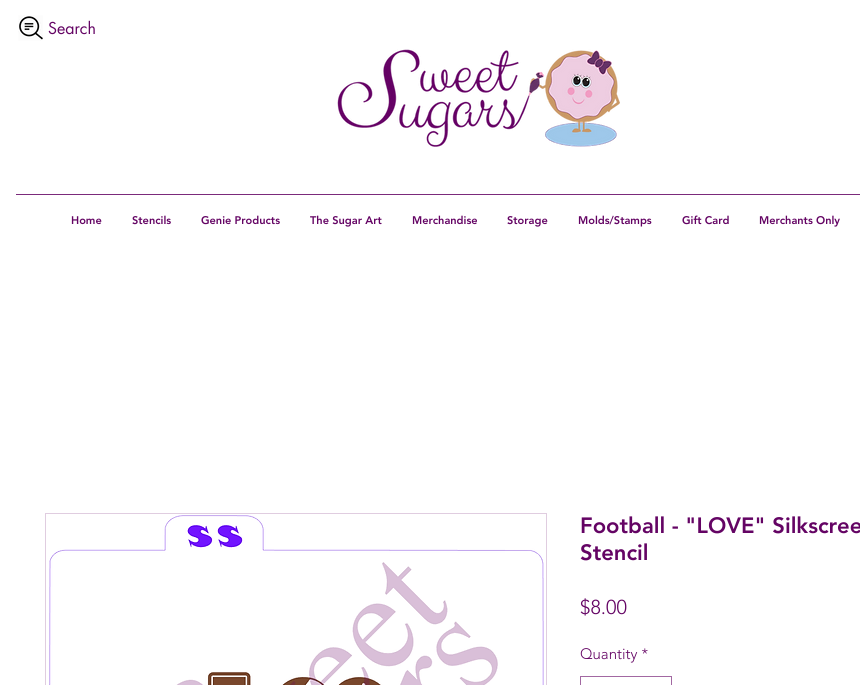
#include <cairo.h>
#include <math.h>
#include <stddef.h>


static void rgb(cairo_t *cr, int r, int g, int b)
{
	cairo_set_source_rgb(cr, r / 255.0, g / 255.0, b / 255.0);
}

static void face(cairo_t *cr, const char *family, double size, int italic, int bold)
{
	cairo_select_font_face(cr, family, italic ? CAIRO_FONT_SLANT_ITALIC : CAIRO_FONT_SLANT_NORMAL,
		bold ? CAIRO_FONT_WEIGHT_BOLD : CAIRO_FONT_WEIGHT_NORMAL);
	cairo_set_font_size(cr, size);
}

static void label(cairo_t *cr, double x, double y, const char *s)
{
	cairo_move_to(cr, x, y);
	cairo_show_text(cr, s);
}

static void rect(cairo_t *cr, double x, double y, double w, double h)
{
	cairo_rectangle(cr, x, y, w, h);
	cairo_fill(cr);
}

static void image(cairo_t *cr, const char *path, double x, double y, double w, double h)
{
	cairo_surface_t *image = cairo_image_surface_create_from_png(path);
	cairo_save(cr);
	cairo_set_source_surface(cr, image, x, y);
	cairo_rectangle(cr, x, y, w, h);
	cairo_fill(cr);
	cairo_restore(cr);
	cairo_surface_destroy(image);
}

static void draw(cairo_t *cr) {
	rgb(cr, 255, 255, 255);
	cairo_paint(cr);
	image(cr, "image0.png", 18, 15, 25, 26);
	face(cr, "futura", 16, 0, 0);
	rgb(cr, 100, 4, 100);
	label(cr, 48, 34, "Search");
	image(cr, "image1.png", 337, 49, 283, 98);
	rgb(cr, 123, 42, 123);
	rect(cr, 16, 194, 844, 1);
	face(cr, "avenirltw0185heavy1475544 Black", 11, 0, 0);
	rgb(cr, 100, 4, 100);
	label(cr, 71, 224, "Home");
	label(cr, 132, 224, "Stencils");
	label(cr, 201, 224, "Genie Products");
	label(cr, 310, 224, "The Sugar Art");
	label(cr, 412, 224, "Merchandise");
	label(cr, 507, 224, "Storage");
	label(cr, 578, 224, "Molds/Stamps");
	label(cr, 682, 224, "Gift Card");
	label(cr, 759, 224, "Merchants Only");
	cairo_rectangle(cr, 45.5, 513.5, 501, 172);
	rgb(cr, 224, 205, 224);
	cairo_set_line_width(cr, 1);
	cairo_stroke(cr);
	image(cr, "image2.png", 49, 515, 495, 170);
	face(cr, "avenirltw0185heavy1475544 Black", 22, 0, 0);
	rgb(cr, 100, 4, 100);
	label(cr, 580, 533, "Football - \"LOVE\" Silkscree");
	label(cr, 580, 560, "Stencil");
	face(cr, "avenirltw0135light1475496 Light", 20, 0, 0);
	label(cr, 580, 614, "$8.00");
	face(cr, "avenirltw0135light1475496 Light", 15, 0, 0);
	label(cr, 580, 659, "Quantity *");
	cairo_rectangle(cr, 580.5, 676.5, 91, 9);
	rgb(cr, 162, 104, 162);
	cairo_stroke(cr);
}

int main(void) {
	cairo_surface_t *surface = cairo_image_surface_create(CAIRO_FORMAT_RGB24, 860, 685);
	cairo_t *cr = cairo_create(surface);
	cairo_font_options_t *options = cairo_font_options_create();
	cairo_font_options_set_hint_metrics(options, CAIRO_HINT_METRICS_OFF);
	cairo_font_options_set_hint_style(options, CAIRO_HINT_STYLE_NONE);
	cairo_set_font_options(cr, options);
	cairo_set_miter_limit(cr, 4);
	draw(cr);
	cairo_surface_write_to_png(surface, "render.png");
	cairo_font_options_destroy(options);
	cairo_destroy(cr);
	cairo_surface_destroy(surface);
	return 0;
}
